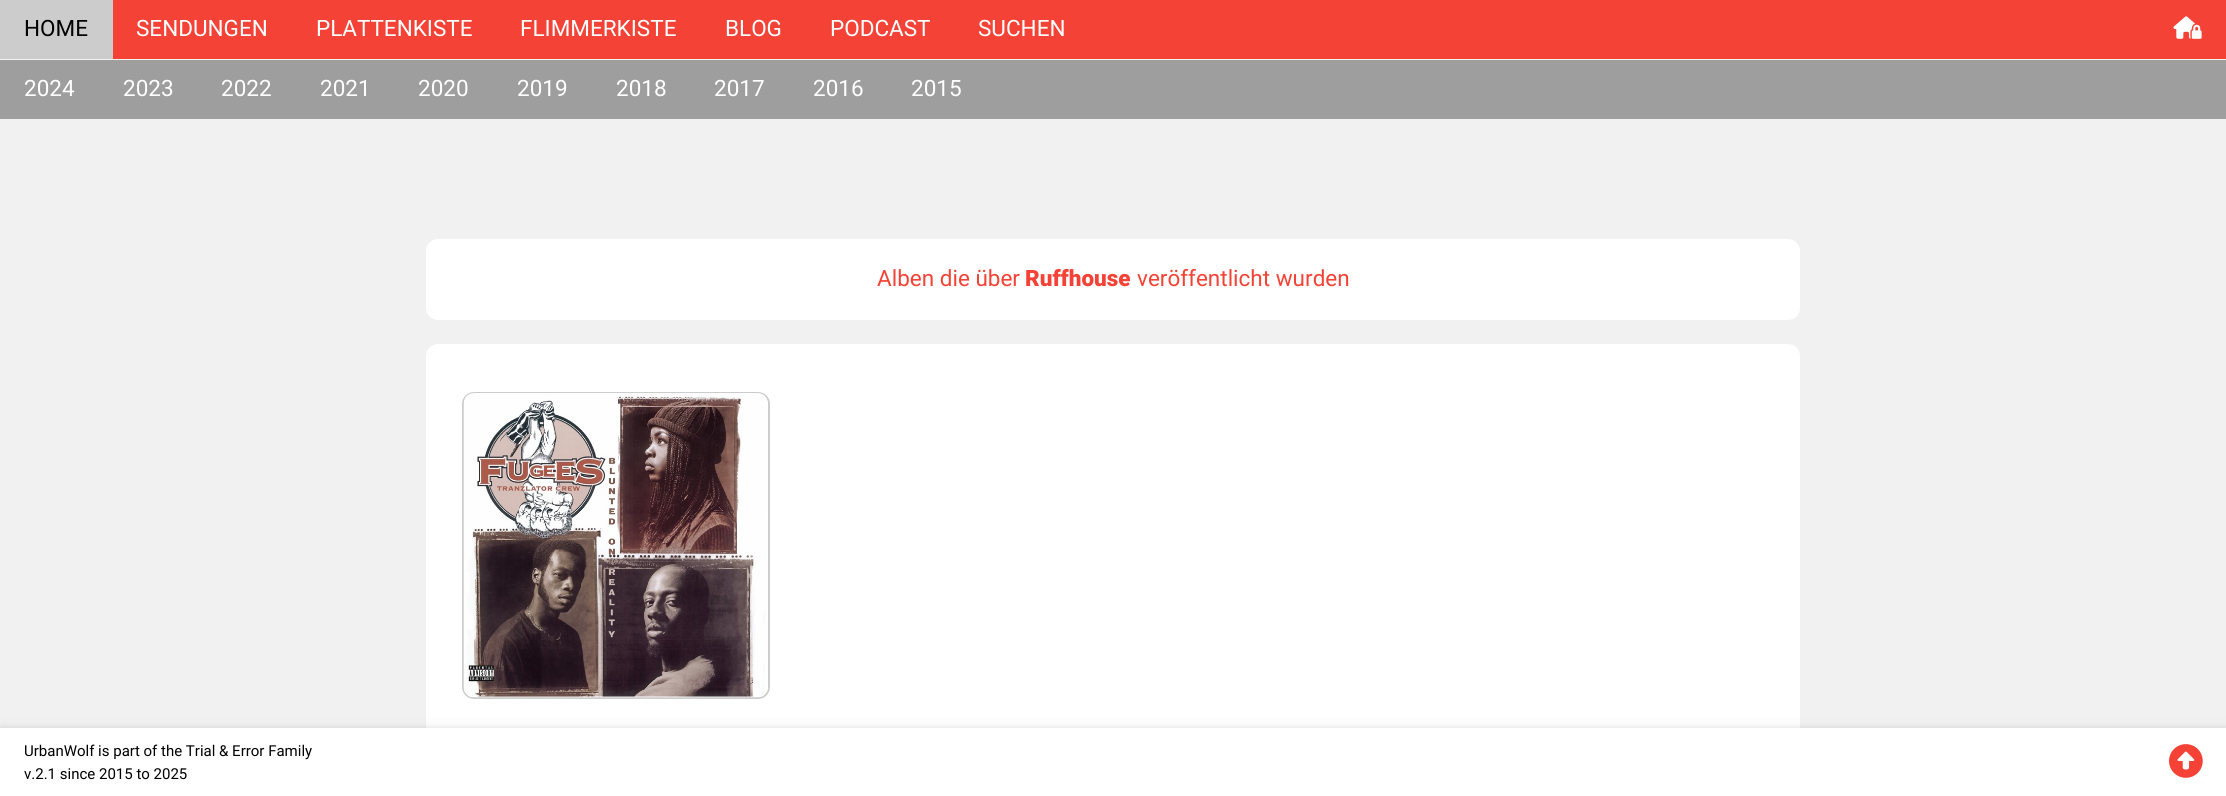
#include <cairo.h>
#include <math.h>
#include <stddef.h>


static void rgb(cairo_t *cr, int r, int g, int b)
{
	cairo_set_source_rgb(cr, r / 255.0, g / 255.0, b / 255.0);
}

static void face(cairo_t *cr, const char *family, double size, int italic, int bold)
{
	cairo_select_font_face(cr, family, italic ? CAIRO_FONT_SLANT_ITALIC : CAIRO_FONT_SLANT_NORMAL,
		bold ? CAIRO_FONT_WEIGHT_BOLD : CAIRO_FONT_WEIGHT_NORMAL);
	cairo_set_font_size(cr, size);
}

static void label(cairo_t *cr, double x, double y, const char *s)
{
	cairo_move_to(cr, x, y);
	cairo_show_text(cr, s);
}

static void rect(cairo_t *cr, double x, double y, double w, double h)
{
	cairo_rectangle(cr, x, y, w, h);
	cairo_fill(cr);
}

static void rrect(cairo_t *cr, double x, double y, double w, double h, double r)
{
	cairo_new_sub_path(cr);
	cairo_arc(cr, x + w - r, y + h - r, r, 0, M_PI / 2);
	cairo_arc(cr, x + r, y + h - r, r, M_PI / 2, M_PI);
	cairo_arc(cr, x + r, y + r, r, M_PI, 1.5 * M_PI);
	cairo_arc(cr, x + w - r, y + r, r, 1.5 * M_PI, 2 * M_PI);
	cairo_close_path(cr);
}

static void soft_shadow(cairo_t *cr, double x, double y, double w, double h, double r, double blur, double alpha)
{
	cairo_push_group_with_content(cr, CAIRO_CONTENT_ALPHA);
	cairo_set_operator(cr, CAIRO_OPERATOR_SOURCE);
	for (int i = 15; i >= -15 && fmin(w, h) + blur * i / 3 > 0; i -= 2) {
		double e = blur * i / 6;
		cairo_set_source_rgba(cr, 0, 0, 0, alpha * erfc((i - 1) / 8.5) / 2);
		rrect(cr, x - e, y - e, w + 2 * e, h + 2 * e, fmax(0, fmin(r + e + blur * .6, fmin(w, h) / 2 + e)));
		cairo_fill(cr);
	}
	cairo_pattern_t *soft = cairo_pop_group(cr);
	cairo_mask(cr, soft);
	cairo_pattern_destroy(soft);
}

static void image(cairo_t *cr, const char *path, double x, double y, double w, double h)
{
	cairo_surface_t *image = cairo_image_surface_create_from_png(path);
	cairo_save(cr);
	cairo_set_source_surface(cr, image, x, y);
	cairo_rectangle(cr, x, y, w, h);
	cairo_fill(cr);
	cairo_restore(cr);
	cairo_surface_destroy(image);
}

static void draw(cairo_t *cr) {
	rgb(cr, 241, 241, 241);
	cairo_paint(cr);
	rgb(cr, 244, 67, 54);
	rect(cr, 113, 0, 2113, 59);
	rgb(cr, 204, 204, 204);
	rect(cr, 0, 0, 113, 59);
	face(cr, "Roboto", 22.5, 0, 0);
	rgb(cr, 0, 0, 0);
	label(cr, 24, 36, "HOME");
	rgb(cr, 255, 255, 255);
	label(cr, 136, 36, "SENDUNGEN");
	label(cr, 316, 36, "PLATTENKISTE");
	label(cr, 520, 36, "FLIMMERKISTE");
	label(cr, 725, 36, "BLOG");
	label(cr, 830, 36, "PODCAST");
	label(cr, 978, 36, "SUCHEN");
	image(cr, "image0.png", 2173, 16, 29, 23);
	rgb(cr, 158, 158, 158);
	rect(cr, 0, 60, 2226, 59);
	rgb(cr, 255, 255, 255);
	label(cr, 24, 96, "2024");
	label(cr, 123, 96, "2023");
	label(cr, 221, 96, "2022");
	label(cr, 320, 96, "2021");
	label(cr, 418, 96, "2020");
	label(cr, 517, 96, "2019");
	label(cr, 616, 96, "2018");
	label(cr, 714, 96, "2017");
	label(cr, 813, 96, "2016");
	label(cr, 911, 96, "2015");
	rrect(cr, 426, 239, 1374, 81, 12);
	cairo_fill(cr);
	rgb(cr, 244, 67, 54);
	label(cr, 877, 286, "Alben die über");
	face(cr, "Roboto Black", 22.5, 0, 0);
	label(cr, 1025, 286, "Ruffhouse");
	face(cr, "Roboto", 22.5, 0, 0);
	label(cr, 1137, 286, "veröffentlicht wurden");
	rgb(cr, 255, 255, 255);
	rrect(cr, 426, 344, 1374, 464, 12);
	cairo_fill(cr);
	rrect(cr, 463, 393, 306, 305, 11);
	rgb(cr, 204, 204, 204);
	cairo_stroke(cr);
	image(cr, "image1.png", 463, 393, 305, 305);
	rgb(cr, 0, 0, 0);
	soft_shadow(cr, 0, 731, 2226, 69, 0, 7.5, 0.12);
	soft_shadow(cr, 0, 731, 2226, 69, 0, 4, 0.16);
	rgb(cr, 255, 255, 255);
	rect(cr, 0, 728, 2226, 68);
	face(cr, "Roboto", 15, 0, 0);
	rgb(cr, 0, 0, 0);
	label(cr, 24, 756, "UrbanWolf is part of the Trial & Error Family");
	label(cr, 24, 779, "v.2.1 since 2015 to 2025");
	image(cr, "image2.png", 2169, 744, 34, 34);
}

int main(void) {
	cairo_surface_t *surface = cairo_image_surface_create(CAIRO_FORMAT_RGB24, 2226, 796);
	cairo_t *cr = cairo_create(surface);
	cairo_font_options_t *options = cairo_font_options_create();
	cairo_font_options_set_hint_metrics(options, CAIRO_HINT_METRICS_OFF);
	cairo_font_options_set_hint_style(options, CAIRO_HINT_STYLE_NONE);
	cairo_set_font_options(cr, options);
	cairo_set_miter_limit(cr, 4);
	draw(cr);
	cairo_surface_write_to_png(surface, "render.png");
	cairo_font_options_destroy(options);
	cairo_destroy(cr);
	cairo_surface_destroy(surface);
	return 0;
}
